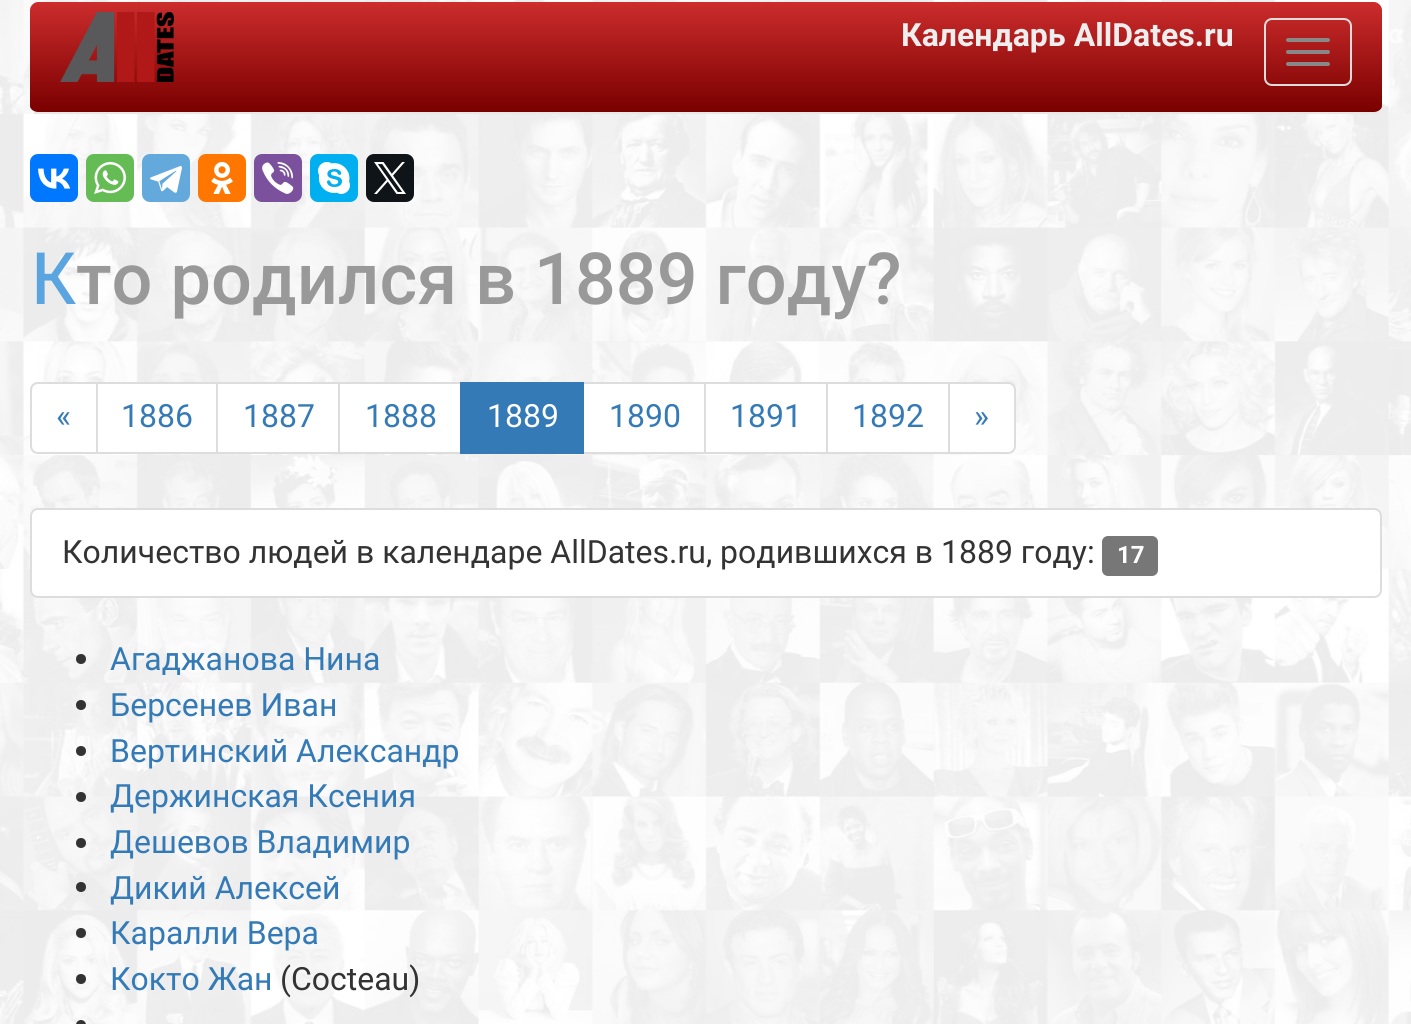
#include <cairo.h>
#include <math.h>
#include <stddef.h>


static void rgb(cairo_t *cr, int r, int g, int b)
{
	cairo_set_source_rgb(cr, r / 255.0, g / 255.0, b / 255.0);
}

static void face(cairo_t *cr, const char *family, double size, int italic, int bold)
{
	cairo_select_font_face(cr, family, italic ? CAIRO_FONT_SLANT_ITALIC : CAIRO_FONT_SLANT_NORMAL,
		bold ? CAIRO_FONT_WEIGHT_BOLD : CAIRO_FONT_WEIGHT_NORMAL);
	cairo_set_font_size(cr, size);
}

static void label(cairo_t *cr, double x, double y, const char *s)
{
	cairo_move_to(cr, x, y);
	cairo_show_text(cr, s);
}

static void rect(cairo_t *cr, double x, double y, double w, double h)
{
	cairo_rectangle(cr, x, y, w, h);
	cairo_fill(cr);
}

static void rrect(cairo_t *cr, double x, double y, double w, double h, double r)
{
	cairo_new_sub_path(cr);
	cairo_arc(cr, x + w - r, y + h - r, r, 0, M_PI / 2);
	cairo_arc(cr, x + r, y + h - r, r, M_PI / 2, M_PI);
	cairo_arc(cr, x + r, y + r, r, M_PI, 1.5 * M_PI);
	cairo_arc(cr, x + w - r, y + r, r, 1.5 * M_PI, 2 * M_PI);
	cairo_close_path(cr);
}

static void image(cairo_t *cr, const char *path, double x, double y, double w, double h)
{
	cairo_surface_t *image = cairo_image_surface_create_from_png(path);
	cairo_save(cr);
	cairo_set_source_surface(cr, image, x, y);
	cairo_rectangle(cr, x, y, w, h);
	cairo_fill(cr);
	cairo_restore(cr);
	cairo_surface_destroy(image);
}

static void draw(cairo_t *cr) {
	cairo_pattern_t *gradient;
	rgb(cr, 255, 255, 255);
	cairo_paint(cr);
	image(cr, "image0.png", 0, 0, 1411, 1024);
	gradient = cairo_pattern_create_linear(706, 2, 706, 112);
	cairo_pattern_add_color_stop_rgba(gradient, 0, 0.8, 0.173, 0.173, 1);
	cairo_pattern_add_color_stop_rgba(gradient, 1, 0.478, 0, 0, 1);
	cairo_set_source(cr, gradient);
	cairo_pattern_destroy(gradient);
	cairo_new_path(cr);
	cairo_move_to(cr, 38, 2);
	cairo_line_to(cr, 1374, 2);
	cairo_curve_to(cr, 1378, 2, 1382, 6, 1382, 10);
	cairo_line_to(cr, 1382, 106);
	cairo_curve_to(cr, 1382, 109, 1378, 112, 1374, 112);
	cairo_line_to(cr, 38, 112);
	cairo_curve_to(cr, 34, 112, 30, 109, 30, 106);
	cairo_line_to(cr, 30, 10);
	cairo_curve_to(cr, 30, 6, 34, 2, 38, 2);
	cairo_close_path(cr);
	cairo_fill(cr);
	rgb(cr, 231, 231, 231);
	rect(cr, 34, 112, 1344, 2);
	image(cr, "image1.png", 60, 12, 114, 70);
	face(cr, "Roboto", 32, 0, 1);
	rgb(cr, 238, 238, 238);
	label(cr, 901, 46, "Календарь AllDates.ru");
	rrect(cr, 1265, 19, 86, 66, 7);
	rgb(cr, 221, 221, 221);
	cairo_stroke(cr);
	rgb(cr, 136, 136, 136);
	rrect(cr, 1286, 38, 44, 4, 2);
	cairo_fill(cr);
	rrect(cr, 1286, 50, 44, 4, 2);
	cairo_fill(cr);
	rrect(cr, 1286, 62, 44, 4, 2);
	cairo_fill(cr);
	rgb(cr, 0, 119, 255);
	rrect(cr, 30, 154, 48, 48, 8);
	cairo_fill(cr);
	image(cr, "image2.png", 38, 168, 33, 21);
	rgb(cr, 101, 188, 84);
	rrect(cr, 86, 154, 48, 48, 8);
	cairo_fill(cr);
	image(cr, "image3.png", 94, 162, 32, 32);
	rgb(cr, 100, 169, 220);
	rrect(cr, 142, 154, 48, 48, 8);
	cairo_fill(cr);
	image(cr, "image4.png", 150, 166, 32, 27);
	rgb(cr, 255, 119, 0);
	rrect(cr, 198, 154, 48, 48, 8);
	cairo_fill(cr);
	image(cr, "image5.png", 211, 162, 22, 32);
	rgb(cr, 123, 81, 157);
	rrect(cr, 254, 154, 48, 48, 8);
	cairo_fill(cr);
	image(cr, "image6.png", 262, 162, 32, 32);
	rgb(cr, 0, 175, 240);
	rrect(cr, 310, 154, 48, 48, 8);
	cairo_fill(cr);
	image(cr, "image7.png", 318, 162, 32, 32);
	rgb(cr, 15, 20, 25);
	rrect(cr, 366, 154, 48, 48, 8);
	cairo_fill(cr);
	image(cr, "image8.png", 374, 162, 32, 32);
	face(cr, "Noto Sans Medium", 72, 0, 0);
	rgb(cr, 90, 164, 224);
	label(cr, 30, 304, "К");
	face(cr, "Roboto Medium", 72, 0, 0);
	rgb(cr, 153, 153, 153);
	label(cr, 76, 304, "то родился в 1889 году?");
	rgb(cr, 255, 255, 255);
	cairo_new_path(cr);
	cairo_move_to(cr, 38, 383);
	cairo_line_to(cr, 97, 383);
	cairo_line_to(cr, 97, 453);
	cairo_line_to(cr, 38, 453);
	cairo_curve_to(cr, 34, 453, 31, 450, 31, 446);
	cairo_line_to(cr, 31, 390);
	cairo_curve_to(cr, 31, 386, 34, 383, 38, 383);
	cairo_close_path(cr);
	cairo_fill_preserve(cr);
	rgb(cr, 221, 221, 221);
	cairo_stroke(cr);
	face(cr, "Roboto", 32, 0, 0);
	rgb(cr, 51, 122, 183);
	label(cr, 56, 427, "«");
	rgb(cr, 255, 255, 255);
	cairo_rectangle(cr, 97, 383, 120, 70);
	cairo_fill_preserve(cr);
	rgb(cr, 221, 221, 221);
	cairo_stroke(cr);
	rgb(cr, 51, 122, 183);
	label(cr, 121, 427, "1886");
	rgb(cr, 255, 255, 255);
	cairo_rectangle(cr, 217, 383, 122, 70);
	cairo_fill_preserve(cr);
	rgb(cr, 221, 221, 221);
	cairo_stroke(cr);
	rgb(cr, 51, 122, 183);
	label(cr, 243, 427, "1887");
	rgb(cr, 255, 255, 255);
	cairo_rectangle(cr, 339, 383, 122, 70);
	cairo_fill_preserve(cr);
	rgb(cr, 221, 221, 221);
	cairo_stroke(cr);
	rgb(cr, 51, 122, 183);
	label(cr, 365, 427, "1888");
	rgb(cr, 255, 255, 255);
	cairo_rectangle(cr, 583, 383, 122, 70);
	cairo_fill_preserve(cr);
	rgb(cr, 221, 221, 221);
	cairo_stroke(cr);
	rgb(cr, 51, 122, 183);
	rect(cr, 460, 382, 124, 72);
	rgb(cr, 255, 255, 255);
	label(cr, 487, 427, "1889");
	rgb(cr, 51, 122, 183);
	label(cr, 609, 427, "1890");
	rgb(cr, 255, 255, 255);
	cairo_rectangle(cr, 705, 383, 122, 70);
	cairo_fill_preserve(cr);
	rgb(cr, 221, 221, 221);
	cairo_stroke(cr);
	rgb(cr, 51, 122, 183);
	label(cr, 730, 427, "1891");
	rgb(cr, 255, 255, 255);
	cairo_rectangle(cr, 827, 383, 122, 70);
	cairo_fill_preserve(cr);
	rgb(cr, 221, 221, 221);
	cairo_stroke(cr);
	rgb(cr, 51, 122, 183);
	label(cr, 852, 427, "1892");
	rgb(cr, 255, 255, 255);
	cairo_new_path(cr);
	cairo_move_to(cr, 949, 383);
	cairo_line_to(cr, 1008, 383);
	cairo_curve_to(cr, 1012, 383, 1015, 386, 1015, 390);
	cairo_line_to(cr, 1015, 446);
	cairo_curve_to(cr, 1015, 450, 1012, 453, 1008, 453);
	cairo_line_to(cr, 949, 453);
	cairo_close_path(cr);
	cairo_fill_preserve(cr);
	rgb(cr, 221, 221, 221);
	cairo_stroke(cr);
	rgb(cr, 51, 122, 183);
	label(cr, 974, 427, "»");
	rgb(cr, 255, 255, 255);
	rrect(cr, 31, 509, 1350, 88, 7);
	cairo_fill_preserve(cr);
	rgb(cr, 221, 221, 221);
	cairo_stroke(cr);
	rgb(cr, 51, 51, 51);
	label(cr, 62, 563, "Количество людей в календаре AllDates.ru, родившихся в 1889 году:");
	rgb(cr, 119, 119, 119);
	rrect(cr, 1102, 536, 56, 40, 6);
	cairo_fill(cr);
	face(cr, "Roboto", 24, 0, 1);
	rgb(cr, 255, 255, 255);
	label(cr, 1117, 563, "17");
	rgb(cr, 51, 51, 51);
	cairo_new_path(cr);
	cairo_arc(cr, 81, 659, 5, 0, 2 * M_PI);
	cairo_fill(cr);
	face(cr, "Roboto", 32, 0, 0);
	rgb(cr, 51, 122, 183);
	label(cr, 110, 670, "Агаджанова Нина");
	rgb(cr, 51, 51, 51);
	cairo_new_path(cr);
	cairo_arc(cr, 81, 705, 5, 0, 2 * M_PI);
	cairo_fill(cr);
	rgb(cr, 51, 122, 183);
	label(cr, 110, 716, "Берсенев Иван");
	rgb(cr, 51, 51, 51);
	cairo_new_path(cr);
	cairo_arc(cr, 81, 751, 5, 0, 2 * M_PI);
	cairo_fill(cr);
	rgb(cr, 51, 122, 183);
	label(cr, 110, 762, "Вертинский Александр");
	rgb(cr, 51, 51, 51);
	cairo_new_path(cr);
	cairo_arc(cr, 81, 797, 5, 0, 2 * M_PI);
	cairo_fill(cr);
	rgb(cr, 51, 122, 183);
	label(cr, 110, 807, "Держинская Ксения");
	rgb(cr, 51, 51, 51);
	cairo_new_path(cr);
	cairo_arc(cr, 81, 843, 5, 0, 2 * M_PI);
	cairo_fill(cr);
	rgb(cr, 51, 122, 183);
	label(cr, 110, 853, "Дешевов Владимир");
	rgb(cr, 51, 51, 51);
	cairo_new_path(cr);
	cairo_arc(cr, 81, 887, 5, 0, 2 * M_PI);
	cairo_fill(cr);
	rgb(cr, 51, 122, 183);
	label(cr, 110, 899, "Дикий Алексей");
	rgb(cr, 51, 51, 51);
	cairo_new_path(cr);
	cairo_arc(cr, 81, 933, 5, 0, 2 * M_PI);
	cairo_fill(cr);
	rgb(cr, 51, 122, 183);
	label(cr, 110, 944, "Каралли Вера");
	rgb(cr, 51, 51, 51);
	cairo_new_path(cr);
	cairo_arc(cr, 81, 979, 5, 0, 2 * M_PI);
	cairo_fill(cr);
	rgb(cr, 51, 122, 183);
	label(cr, 110, 990, "Кокто Жан");
	rgb(cr, 51, 51, 51);
	label(cr, 280, 990, "(Cocteau)");
	rrect(cr, 76, 1020, 10, 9, 5);
	cairo_fill(cr);
}

int main(void) {
	cairo_surface_t *surface = cairo_image_surface_create(CAIRO_FORMAT_RGB24, 1411, 1024);
	cairo_t *cr = cairo_create(surface);
	cairo_font_options_t *options = cairo_font_options_create();
	cairo_font_options_set_hint_metrics(options, CAIRO_HINT_METRICS_OFF);
	cairo_font_options_set_hint_style(options, CAIRO_HINT_STYLE_NONE);
	cairo_set_font_options(cr, options);
	cairo_set_miter_limit(cr, 4);
	draw(cr);
	cairo_surface_write_to_png(surface, "render.png");
	cairo_font_options_destroy(options);
	cairo_destroy(cr);
	cairo_surface_destroy(surface);
	return 0;
}
